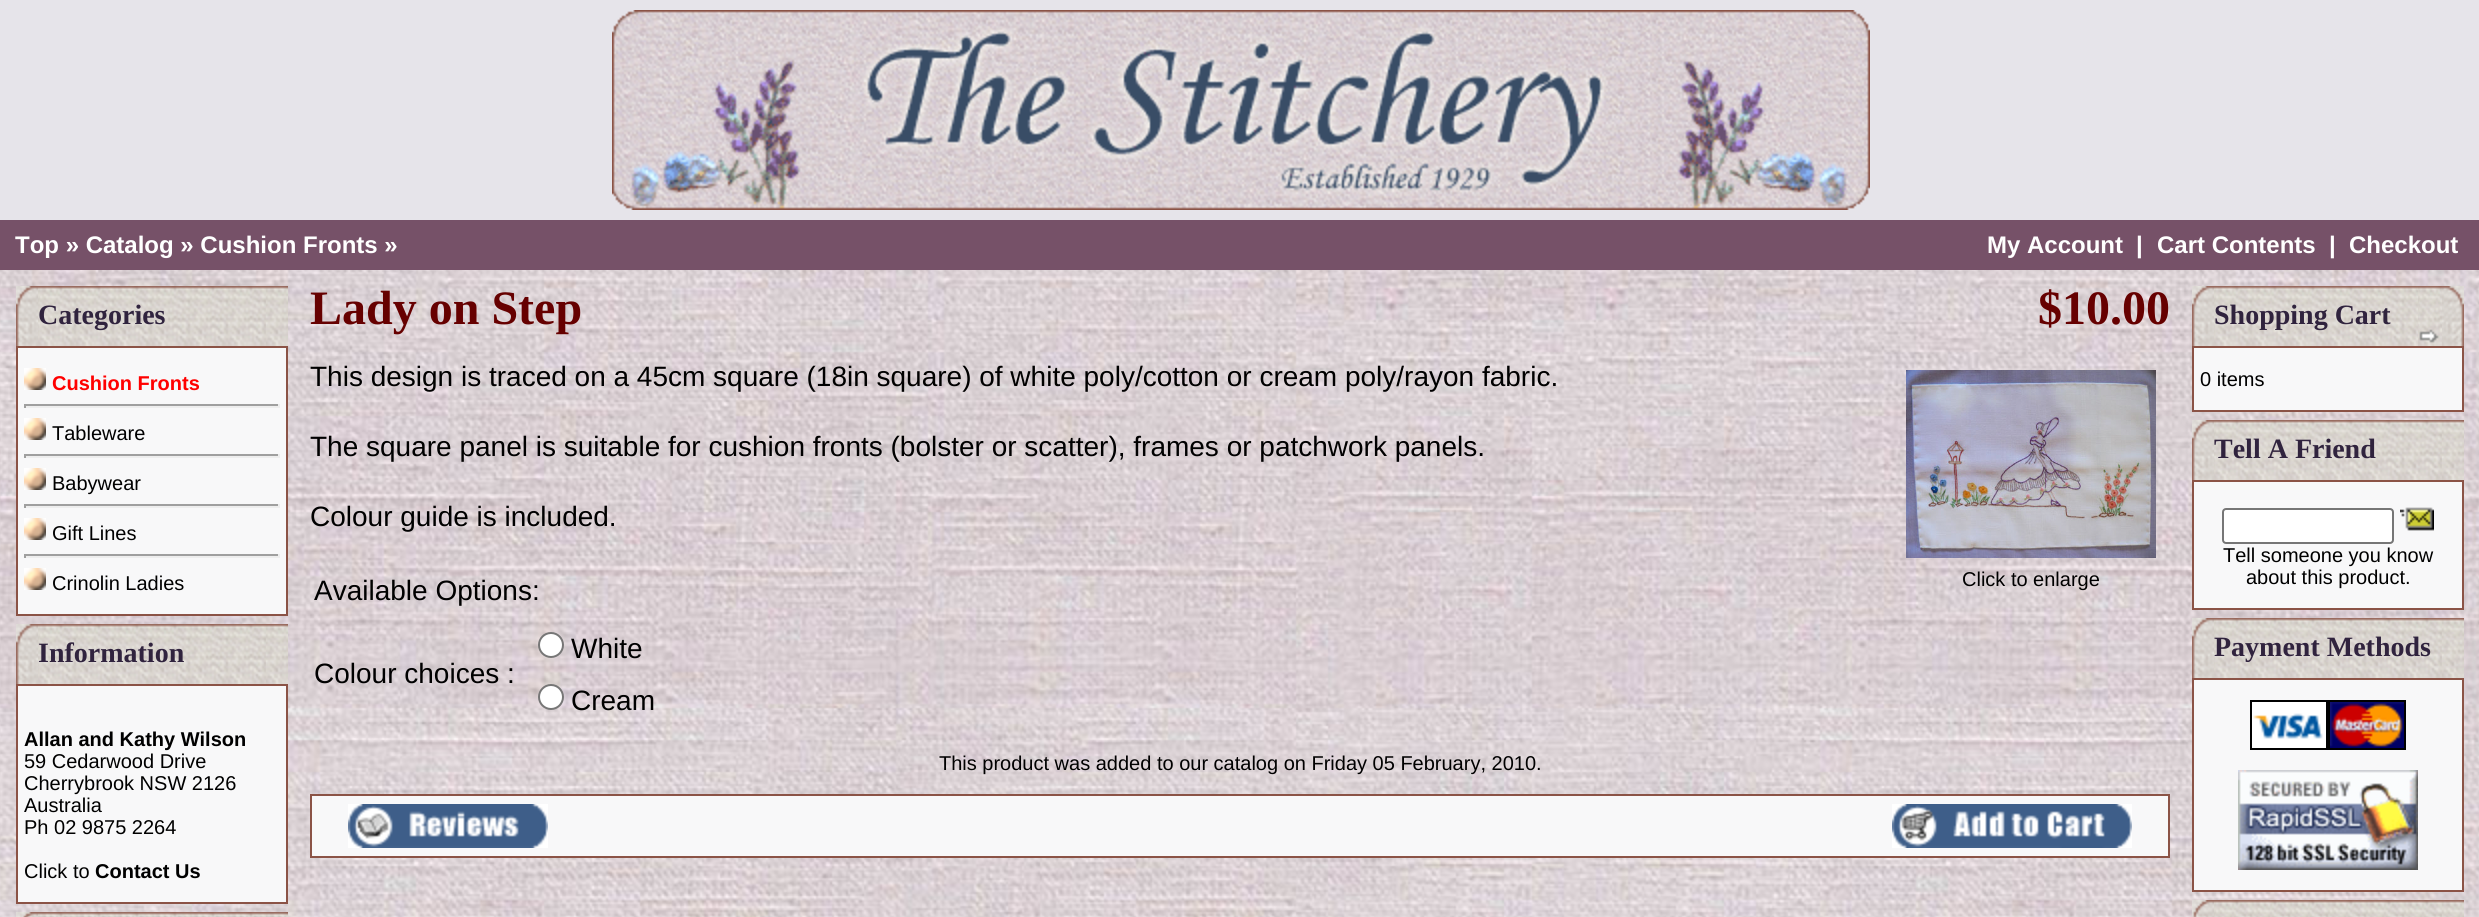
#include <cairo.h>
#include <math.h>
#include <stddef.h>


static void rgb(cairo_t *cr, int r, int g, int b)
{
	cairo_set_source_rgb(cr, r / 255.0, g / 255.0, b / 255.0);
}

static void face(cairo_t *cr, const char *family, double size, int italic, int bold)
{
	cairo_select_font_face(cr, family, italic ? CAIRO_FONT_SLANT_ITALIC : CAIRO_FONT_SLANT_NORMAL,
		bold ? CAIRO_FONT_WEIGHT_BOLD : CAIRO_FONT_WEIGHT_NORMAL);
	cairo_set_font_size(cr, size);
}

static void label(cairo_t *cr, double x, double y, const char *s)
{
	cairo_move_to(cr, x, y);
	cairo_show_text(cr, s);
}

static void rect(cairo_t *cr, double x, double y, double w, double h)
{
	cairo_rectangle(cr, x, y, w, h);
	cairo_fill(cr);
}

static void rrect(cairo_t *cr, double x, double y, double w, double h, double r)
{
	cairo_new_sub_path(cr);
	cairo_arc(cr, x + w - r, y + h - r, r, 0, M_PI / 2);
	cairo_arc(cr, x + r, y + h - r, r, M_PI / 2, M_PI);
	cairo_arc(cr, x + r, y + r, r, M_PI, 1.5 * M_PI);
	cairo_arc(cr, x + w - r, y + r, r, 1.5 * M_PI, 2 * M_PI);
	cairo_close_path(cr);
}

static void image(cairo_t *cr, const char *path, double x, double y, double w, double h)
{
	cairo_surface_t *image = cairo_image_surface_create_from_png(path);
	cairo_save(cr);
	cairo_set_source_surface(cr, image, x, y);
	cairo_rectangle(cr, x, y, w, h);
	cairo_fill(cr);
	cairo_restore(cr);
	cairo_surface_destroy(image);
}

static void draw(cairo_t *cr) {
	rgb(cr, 255, 255, 255);
	cairo_paint(cr);
	image(cr, "image0.png", 0, 270, 2479, 647);
	rgb(cr, 230, 228, 234);
	rect(cr, 0, 0, 2479, 220);
	image(cr, "image1.png", 612, 10, 1258, 200);
	rgb(cr, 118, 81, 104);
	rect(cr, 0, 220, 2479, 50);
	face(cr, "Liberation Sans", 24, 0, 1);
	rgb(cr, 255, 255, 255);
	label(cr, 15, 253, "Top » Catalog » Cushion Fronts »");
	label(cr, 1987, 253, "My Account");
	label(cr, 2136, 253, "|");
	label(cr, 2157, 253, "Cart Contents");
	label(cr, 2329, 253, "|");
	label(cr, 2349, 253, "Checkout");
	image(cr, "image2.png", 16, 286, 22, 60);
	image(cr, "image3.png", 38, 286, 228, 60);
	face(cr, "Liberation Serif", 28, 0, 1);
	rgb(cr, 48, 35, 62);
	label(cr, 38, 324, "Categories");
	image(cr, "image4.png", 266, 286, 22, 60);
	rgb(cr, 139, 83, 70);
	rect(cr, 16, 346, 272, 270);
	rgb(cr, 248, 248, 249);
	rect(cr, 18, 348, 268, 266);
	image(cr, "image5.png", 24, 368, 22, 22);
	face(cr, "Liberation Sans", 20, 0, 1);
	rgb(cr, 255, 0, 0);
	label(cr, 52, 390, "Cushion Fronts");
	rgb(cr, 159, 159, 159);
	rect(cr, 24, 404, 256, 2);
	rgb(cr, 238, 238, 238);
	rect(cr, 278, 404, 2, 4);
	rect(cr, 24, 406, 256, 2);
	rgb(cr, 159, 159, 159);
	rect(cr, 24, 404, 2, 4);
	image(cr, "image5.png", 24, 418, 22, 22);
	face(cr, "Liberation Sans", 20, 0, 0);
	rgb(cr, 0, 0, 0);
	label(cr, 52, 440, "Tableware");
	rgb(cr, 159, 159, 159);
	rect(cr, 24, 454, 256, 2);
	rgb(cr, 238, 238, 238);
	rect(cr, 278, 454, 2, 4);
	rect(cr, 24, 456, 256, 2);
	rgb(cr, 159, 159, 159);
	rect(cr, 24, 454, 2, 4);
	image(cr, "image5.png", 24, 468, 22, 22);
	rgb(cr, 0, 0, 0);
	label(cr, 52, 490, "Babywear");
	rgb(cr, 159, 159, 159);
	rect(cr, 24, 504, 256, 2);
	rgb(cr, 238, 238, 238);
	rect(cr, 278, 504, 2, 4);
	rect(cr, 24, 506, 256, 2);
	rgb(cr, 159, 159, 159);
	rect(cr, 24, 504, 2, 4);
	image(cr, "image5.png", 24, 518, 22, 22);
	rgb(cr, 0, 0, 0);
	label(cr, 52, 540, "Gift Lines");
	rgb(cr, 159, 159, 159);
	rect(cr, 24, 554, 256, 2);
	rgb(cr, 238, 238, 238);
	rect(cr, 278, 554, 2, 4);
	rect(cr, 24, 556, 256, 2);
	rgb(cr, 159, 159, 159);
	rect(cr, 24, 554, 2, 4);
	image(cr, "image5.png", 24, 568, 22, 22);
	rgb(cr, 0, 0, 0);
	label(cr, 52, 590, "Crinolin Ladies");
	image(cr, "image2.png", 16, 624, 22, 60);
	image(cr, "image3.png", 38, 624, 228, 60);
	face(cr, "Liberation Serif", 28, 0, 1);
	rgb(cr, 48, 35, 62);
	label(cr, 38, 662, "Information");
	image(cr, "image4.png", 266, 624, 22, 60);
	rgb(cr, 139, 83, 70);
	rect(cr, 16, 684, 272, 220);
	rgb(cr, 248, 248, 249);
	rect(cr, 18, 686, 268, 216);
	face(cr, "Liberation Sans", 20, 0, 1);
	rgb(cr, 0, 0, 0);
	label(cr, 24, 746, "Allan and Kathy Wilson");
	face(cr, "Liberation Sans", 20, 0, 0);
	label(cr, 24, 768, "59 Cedarwood Drive");
	label(cr, 24, 790, "Cherrybrook NSW 2126");
	label(cr, 24, 812, "Australia");
	label(cr, 24, 834, "Ph 02 9875 2264");
	label(cr, 24, 878, "Click to");
	face(cr, "Liberation Sans", 20, 0, 1);
	label(cr, 95, 878, "Contact Us");
	image(cr, "image6.png", 16, 912, 22, 5);
	image(cr, "image7.png", 38, 912, 228, 5);
	image(cr, "image8.png", 266, 912, 22, 5);
	face(cr, "Liberation Serif", 48, 0, 1);
	rgb(cr, 102, 0, 0);
	label(cr, 310, 324, "Lady on Step");
	label(cr, 2038, 324, "$10.00");
	face(cr, "Liberation Sans", 28, 0, 0);
	rgb(cr, 0, 0, 0);
	label(cr, 310, 386, "This design is traced on a 45cm square (18in square) of white poly/cotton or cream poly/rayon fabric.");
	label(cr, 310, 456, "The square panel is suitable for cushion fronts (bolster or scatter), frames or patchwork panels.");
	label(cr, 310, 526, "Colour guide is included.");
	label(cr, 314, 600, "Available Options:");
	label(cr, 314, 683, "Colour choices :");
	rgb(cr, 255, 255, 255);
	cairo_new_path(cr);
	cairo_arc(cr, 551, 645, 12, 0, 2 * M_PI);
	cairo_fill_preserve(cr);
	rgb(cr, 118, 118, 118);
	cairo_stroke(cr);
	rgb(cr, 0, 0, 0);
	label(cr, 571, 658, "White");
	rgb(cr, 255, 255, 255);
	cairo_new_path(cr);
	cairo_arc(cr, 551, 697, 12, 0, 2 * M_PI);
	cairo_fill_preserve(cr);
	rgb(cr, 118, 118, 118);
	cairo_stroke(cr);
	rgb(cr, 0, 0, 0);
	label(cr, 571, 710, "Cream");
	image(cr, "image9.png", 1906, 370, 250, 188);
	face(cr, "Liberation Sans", 20, 0, 0);
	label(cr, 1962, 586, "Click to enlarge");
	label(cr, 939, 770, "This product was added to our catalog on Friday 05 February, 2010.");
	rgb(cr, 139, 83, 70);
	rect(cr, 310, 794, 1860, 64);
	rgb(cr, 248, 248, 249);
	rect(cr, 312, 796, 1856, 60);
	image(cr, "image10.png", 348, 804, 200, 44);
	image(cr, "image11.png", 1892, 804, 240, 44);
	image(cr, "image2.png", 2192, 286, 22, 60);
	image(cr, "image12.png", 2214, 286, 204, 60);
	face(cr, "Liberation Serif", 28, 0, 1);
	rgb(cr, 48, 35, 62);
	label(cr, 2214, 324, "Shopping Cart");
	image(cr, "image13.png", 2418, 286, 24, 60);
	image(cr, "image14.png", 2419, 329, 20, 14);
	image(cr, "image15.png", 2442, 286, 22, 60);
	rgb(cr, 139, 83, 70);
	rect(cr, 2192, 346, 272, 66);
	rgb(cr, 248, 248, 249);
	rect(cr, 2194, 348, 268, 62);
	face(cr, "Liberation Sans", 20, 0, 0);
	rgb(cr, 0, 0, 0);
	label(cr, 2200, 386, "0 items");
	image(cr, "image2.png", 2192, 420, 22, 60);
	image(cr, "image3.png", 2214, 420, 228, 60);
	face(cr, "Liberation Serif", 28, 0, 1);
	rgb(cr, 48, 35, 62);
	label(cr, 2214, 458, "Tell A Friend");
	image(cr, "image4.png", 2442, 420, 22, 60);
	rgb(cr, 139, 83, 70);
	rect(cr, 2192, 480, 272, 130);
	rgb(cr, 248, 248, 249);
	rect(cr, 2194, 482, 268, 126);
	rgb(cr, 255, 255, 255);
	rrect(cr, 2223, 509, 170, 34, 3);
	cairo_fill_preserve(cr);
	rgb(cr, 118, 118, 118);
	cairo_stroke(cr);
	image(cr, "image16.png", 2400, 507, 34, 24);
	face(cr, "Liberation Sans", 20, 0, 0);
	rgb(cr, 0, 0, 0);
	label(cr, 2223, 562, "Tell someone you know");
	label(cr, 2246, 584, "about this product.");
	image(cr, "image2.png", 2192, 618, 22, 60);
	image(cr, "image3.png", 2214, 618, 228, 60);
	face(cr, "Liberation Serif", 28, 0, 1);
	rgb(cr, 48, 35, 62);
	label(cr, 2214, 656, "Payment Methods");
	image(cr, "image4.png", 2442, 618, 22, 60);
	rgb(cr, 139, 83, 70);
	rect(cr, 2192, 678, 272, 214);
	rgb(cr, 248, 248, 249);
	rect(cr, 2194, 680, 268, 210);
	cairo_rectangle(cr, 2251, 701, 76, 48);
	rgb(cr, 0, 0, 0);
	cairo_stroke(cr);
	cairo_rectangle(cr, 2329, 701, 76, 48);
	cairo_stroke(cr);
	image(cr, "image17.png", 2252, 702, 74, 46);
	image(cr, "image18.png", 2330, 702, 74, 46);
	image(cr, "image19.png", 2238, 770, 180, 100);
	image(cr, "image20.png", 2192, 900, 22, 17);
	image(cr, "image21.png", 2214, 900, 228, 17);
	image(cr, "image22.png", 2442, 900, 22, 17);
}

int main(void) {
	cairo_surface_t *surface = cairo_image_surface_create(CAIRO_FORMAT_RGB24, 2479, 917);
	cairo_t *cr = cairo_create(surface);
	cairo_font_options_t *options = cairo_font_options_create();
	cairo_font_options_set_hint_metrics(options, CAIRO_HINT_METRICS_OFF);
	cairo_font_options_set_hint_style(options, CAIRO_HINT_STYLE_NONE);
	cairo_set_font_options(cr, options);
	cairo_set_miter_limit(cr, 4);
	draw(cr);
	cairo_surface_write_to_png(surface, "render.png");
	cairo_font_options_destroy(options);
	cairo_destroy(cr);
	cairo_surface_destroy(surface);
	return 0;
}
